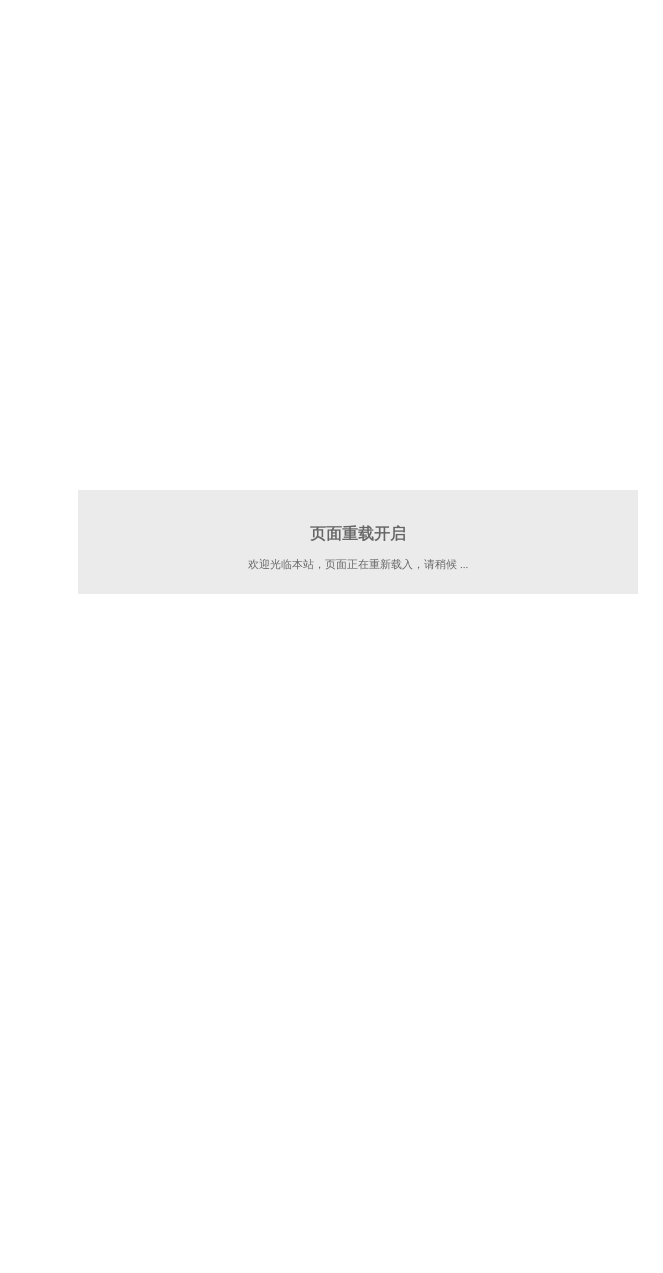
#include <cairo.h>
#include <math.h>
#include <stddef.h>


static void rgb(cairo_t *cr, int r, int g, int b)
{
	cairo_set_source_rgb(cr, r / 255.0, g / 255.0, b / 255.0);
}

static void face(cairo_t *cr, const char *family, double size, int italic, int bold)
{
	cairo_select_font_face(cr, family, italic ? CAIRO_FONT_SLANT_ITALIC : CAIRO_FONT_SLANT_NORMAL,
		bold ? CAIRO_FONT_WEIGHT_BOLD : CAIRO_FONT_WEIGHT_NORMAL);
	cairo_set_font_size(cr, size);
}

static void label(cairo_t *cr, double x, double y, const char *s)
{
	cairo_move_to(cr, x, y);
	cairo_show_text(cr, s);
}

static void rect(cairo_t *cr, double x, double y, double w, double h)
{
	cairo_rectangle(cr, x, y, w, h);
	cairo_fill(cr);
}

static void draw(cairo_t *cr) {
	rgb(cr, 255, 255, 255);
	cairo_paint(cr);
	rgb(cr, 235, 235, 235);
	rect(cr, 78, 490, 560, 104);
	face(cr, "WenQuanYi Zen Hei", 16, 0, 1);
	rgb(cr, 102, 102, 102);
	label(cr, 310, 539, "页面重载开启");
	face(cr, "WenQuanYi Zen Hei Medium", 11, 0, 0);
	label(cr, 248, 568, "欢迎光临本站，页面正在重新载入，请稍候");
	face(cr, "Liberation Serif", 11, 0, 0);
	label(cr, 460, 568, "...");
}

int main(void) {
	cairo_surface_t *surface = cairo_image_surface_create(CAIRO_FORMAT_RGB24, 663, 1273);
	cairo_t *cr = cairo_create(surface);
	cairo_font_options_t *options = cairo_font_options_create();
	cairo_font_options_set_hint_metrics(options, CAIRO_HINT_METRICS_OFF);
	cairo_font_options_set_hint_style(options, CAIRO_HINT_STYLE_NONE);
	cairo_set_font_options(cr, options);
	cairo_set_miter_limit(cr, 4);
	draw(cr);
	cairo_surface_write_to_png(surface, "render.png");
	cairo_font_options_destroy(options);
	cairo_destroy(cr);
	cairo_surface_destroy(surface);
	return 0;
}
